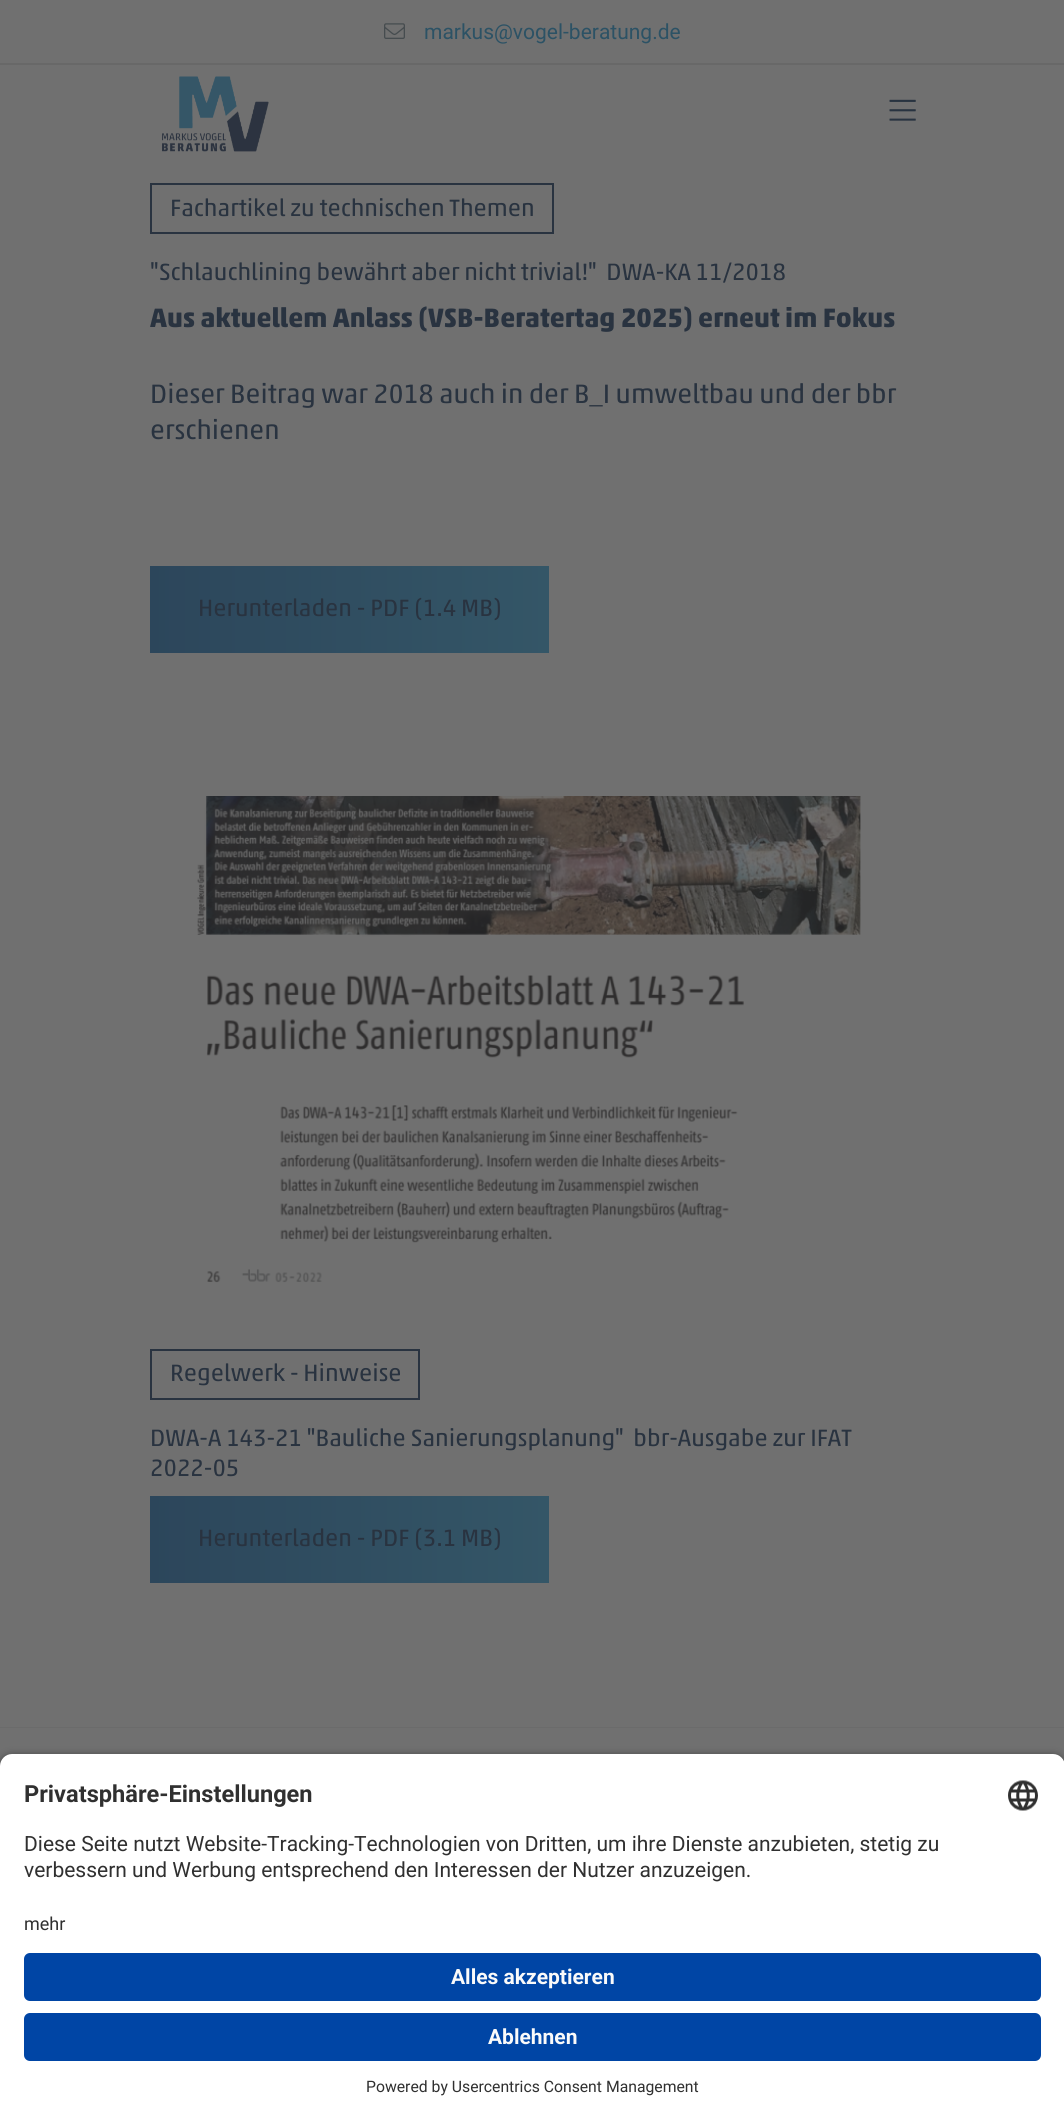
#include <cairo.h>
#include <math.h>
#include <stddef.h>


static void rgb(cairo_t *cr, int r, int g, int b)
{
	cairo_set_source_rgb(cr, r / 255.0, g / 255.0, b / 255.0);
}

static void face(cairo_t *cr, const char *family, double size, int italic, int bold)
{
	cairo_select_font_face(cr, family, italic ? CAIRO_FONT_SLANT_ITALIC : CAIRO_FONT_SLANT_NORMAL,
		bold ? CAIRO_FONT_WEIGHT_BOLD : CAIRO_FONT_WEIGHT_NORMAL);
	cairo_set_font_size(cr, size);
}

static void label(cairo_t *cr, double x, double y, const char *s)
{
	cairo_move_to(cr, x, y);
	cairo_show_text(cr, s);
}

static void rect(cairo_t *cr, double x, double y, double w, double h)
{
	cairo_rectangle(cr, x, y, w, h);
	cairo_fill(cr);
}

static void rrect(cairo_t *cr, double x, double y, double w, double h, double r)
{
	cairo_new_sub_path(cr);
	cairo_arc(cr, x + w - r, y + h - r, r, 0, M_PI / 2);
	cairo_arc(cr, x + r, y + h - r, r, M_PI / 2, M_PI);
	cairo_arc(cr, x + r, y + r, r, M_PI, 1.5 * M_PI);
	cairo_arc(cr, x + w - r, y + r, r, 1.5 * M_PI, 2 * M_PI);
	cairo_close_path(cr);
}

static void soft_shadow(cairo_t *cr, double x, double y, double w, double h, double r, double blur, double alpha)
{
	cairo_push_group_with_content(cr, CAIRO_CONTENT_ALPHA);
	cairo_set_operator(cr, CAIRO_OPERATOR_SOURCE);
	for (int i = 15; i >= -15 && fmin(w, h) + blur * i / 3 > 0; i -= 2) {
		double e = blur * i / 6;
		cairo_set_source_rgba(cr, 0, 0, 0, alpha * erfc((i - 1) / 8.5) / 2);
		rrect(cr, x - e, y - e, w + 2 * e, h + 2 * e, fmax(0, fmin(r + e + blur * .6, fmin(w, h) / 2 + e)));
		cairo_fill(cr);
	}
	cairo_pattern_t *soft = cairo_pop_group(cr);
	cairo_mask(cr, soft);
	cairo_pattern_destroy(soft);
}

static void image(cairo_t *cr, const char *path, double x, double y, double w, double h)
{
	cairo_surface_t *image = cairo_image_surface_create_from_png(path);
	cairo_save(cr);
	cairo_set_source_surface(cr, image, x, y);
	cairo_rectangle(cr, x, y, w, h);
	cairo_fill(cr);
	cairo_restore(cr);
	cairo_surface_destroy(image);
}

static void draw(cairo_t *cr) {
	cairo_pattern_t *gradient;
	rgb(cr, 112, 112, 112);
	cairo_paint(cr);
	rgb(cr, 104, 104, 104);
	rect(cr, 0, 63, 1064, 2);
	image(cr, "image0.png", 384, 23, 21, 16);
	face(cr, "Roboto", 21, 0, 0);
	rgb(cr, 44, 82, 101);
	label(cr, 424, 39, "markus@vogel-beratung.de");
	image(cr, "image1.png", 162, 76, 107, 76);
	image(cr, "image2.png", 889, 99, 27, 22);
	cairo_rectangle(cr, 151, 184, 402, 49);
	rgb(cr, 41, 51, 64);
	cairo_stroke(cr);
	face(cr, "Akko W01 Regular", 24, 0, 0);
	label(cr, 170, 216, "Fachartikel zu technischen Themen");
	label(cr, 150, 280, "\"Schlauchlining bewährt aber nicht trivial!\"  DWA-KA 11/2018");
	face(cr, "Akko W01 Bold", 27, 0, 1);
	label(cr, 150, 327, "Aus aktuellem Anlass (VSB-Beratertag 2025) erneut im Fokus");
	face(cr, "Akko W01 Regular", 27, 0, 0);
	label(cr, 150, 403, "Dieser Beitrag war 2018 auch in der B_I umweltbau und der bbr");
	label(cr, 150, 439, "erschienen");
	gradient = cairo_pattern_create_linear(150, 609, 549, 609);
	cairo_pattern_add_color_stop_rgba(gradient, 0, 0.173, 0.275, 0.357, 1);
	cairo_pattern_add_color_stop_rgba(gradient, 1, 0.204, 0.337, 0.404, 1);
	cairo_set_source(cr, gradient);
	cairo_pattern_destroy(gradient);
	rect(cr, 150, 566, 399, 87);
	face(cr, "Akko W01 Regular", 24, 0, 0);
	rgb(cr, 41, 51, 64);
	label(cr, 198, 616, "Herunterladen - PDF (1.4 MB)");
	image(cr, "image3.png", 197, 796, 664, 487);
	cairo_rectangle(cr, 151, 1350, 268, 49);
	cairo_stroke(cr);
	label(cr, 170, 1381, "Regelwerk - Hinweise");
	label(cr, 150, 1446, "DWA-A 143-21 \"Bauliche Sanierungsplanung\"  bbr-Ausgabe zur IFAT");
	label(cr, 150, 1476, "2022-05");
	gradient = cairo_pattern_create_linear(150, 1539, 549, 1539);
	cairo_pattern_add_color_stop_rgba(gradient, 0, 0.173, 0.275, 0.357, 1);
	cairo_pattern_add_color_stop_rgba(gradient, 1, 0.204, 0.337, 0.404, 1);
	cairo_set_source(cr, gradient);
	cairo_pattern_destroy(gradient);
	rect(cr, 150, 1496, 399, 87);
	rgb(cr, 41, 51, 64);
	label(cr, 198, 1546, "Herunterladen - PDF (3.1 MB)");
	rgb(cr, 107, 107, 107);
	rect(cr, 0, 1727, 1064, 1);
	rgb(cr, 0, 0, 0);
	soft_shadow(cr, 0, 1758, 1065, 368, 12, 5, 0.8);
	rgb(cr, 255, 255, 255);
	cairo_new_path(cr);
	cairo_move_to(cr, 12, 1754);
	cairo_line_to(cr, 1053, 1754);
	cairo_curve_to(cr, 1059.5, 1754, 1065, 1759.5, 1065, 1766);
	cairo_line_to(cr, 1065, 1914);
	cairo_line_to(cr, 0, 1914);
	cairo_line_to(cr, 0, 1766);
	cairo_curve_to(cr, 0, 1759.5, 5.5, 1754, 12, 1754);
	cairo_close_path(cr);
	cairo_fill(cr);
	face(cr, "Roboto", 23.6, 0, 1);
	rgb(cr, 48, 48, 48);
	label(cr, 24, 1802, "Privatsphäre-Einstellungen");
	image(cr, "image4.png", 1008, 1780, 30, 31);
	face(cr, "Roboto", 21, 0, 0);
	label(cr, 24, 1851, "Diese Seite nutzt Website-Tracking-Technologien von Dritten, um ihre Dienste anzubieten, stetig zu");
	label(cr, 24, 1877, "verbessern und Werbung entsprechend den Interessen der Nutzer anzuzeigen.");
	rgb(cr, 255, 255, 255);
	rect(cr, 0, 1914, 1064, 206);
	face(cr, "Roboto", 18, 0, 0);
	rgb(cr, 48, 48, 48);
	label(cr, 24, 1930, "mehr");
	rgb(cr, 0, 69, 165);
	rrect(cr, 24, 1953, 1017, 48, 6);
	cairo_fill(cr);
	face(cr, "Roboto", 21, 0, 1);
	rgb(cr, 250, 250, 250);
	label(cr, 451, 1984, "Alles akzeptieren");
	rgb(cr, 0, 69, 165);
	rrect(cr, 24, 2013, 1017, 48, 6);
	cairo_fill(cr);
	rgb(cr, 250, 250, 250);
	label(cr, 488, 2044, "Ablehnen");
	face(cr, "Roboto", 15.75, 0, 0);
	rgb(cr, 48, 48, 48);
	label(cr, 366, 2092, "Powered by Usercentrics Consent Management");
}

int main(void) {
	cairo_surface_t *surface = cairo_image_surface_create(CAIRO_FORMAT_RGB24, 1064, 2120);
	cairo_t *cr = cairo_create(surface);
	cairo_font_options_t *options = cairo_font_options_create();
	cairo_font_options_set_hint_metrics(options, CAIRO_HINT_METRICS_OFF);
	cairo_font_options_set_hint_style(options, CAIRO_HINT_STYLE_NONE);
	cairo_set_font_options(cr, options);
	cairo_set_miter_limit(cr, 4);
	draw(cr);
	cairo_surface_write_to_png(surface, "render.png");
	cairo_font_options_destroy(options);
	cairo_destroy(cr);
	cairo_surface_destroy(surface);
	return 0;
}
